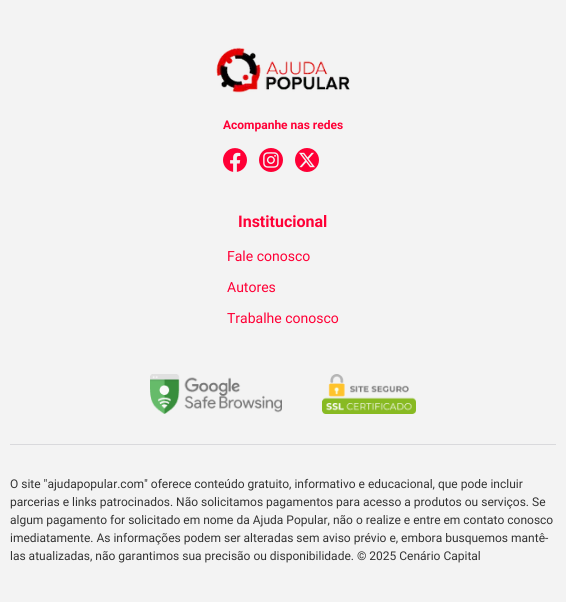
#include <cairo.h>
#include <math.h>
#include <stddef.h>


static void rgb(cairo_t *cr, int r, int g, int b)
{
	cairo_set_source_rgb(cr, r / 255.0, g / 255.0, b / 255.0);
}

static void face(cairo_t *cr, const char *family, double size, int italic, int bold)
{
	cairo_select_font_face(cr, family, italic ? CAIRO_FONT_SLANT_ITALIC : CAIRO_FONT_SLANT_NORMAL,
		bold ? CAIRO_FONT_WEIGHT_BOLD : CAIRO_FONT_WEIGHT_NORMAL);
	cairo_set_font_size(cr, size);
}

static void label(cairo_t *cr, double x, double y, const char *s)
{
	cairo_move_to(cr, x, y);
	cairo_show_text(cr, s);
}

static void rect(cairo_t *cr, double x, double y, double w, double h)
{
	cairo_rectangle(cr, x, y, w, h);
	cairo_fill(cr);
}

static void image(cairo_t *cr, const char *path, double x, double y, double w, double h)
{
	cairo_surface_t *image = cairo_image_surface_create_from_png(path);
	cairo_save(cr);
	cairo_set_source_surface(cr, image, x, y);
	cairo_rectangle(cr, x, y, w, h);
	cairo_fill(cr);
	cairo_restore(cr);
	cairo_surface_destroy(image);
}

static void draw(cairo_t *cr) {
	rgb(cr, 243, 243, 243);
	cairo_paint(cr);
	rgb(cr, 217, 217, 220);
	rect(cr, 10, 444, 546, 1);
	image(cr, "image0.png", 216, 47, 134, 46);
	face(cr, "Roboto", 12, 0, 1);
	rgb(cr, 255, 0, 54);
	label(cr, 223, 129, "Acompanhe nas redes");
	image(cr, "image1.png", 223, 148, 24, 24);
	image(cr, "image2.png", 259, 148, 24, 24);
	image(cr, "image3.png", 295, 148, 24, 24);
	face(cr, "Roboto", 16, 0, 1);
	label(cr, 238, 227, "Institucional");
	face(cr, "Roboto", 14, 0, 0);
	label(cr, 227, 261, "Fale conosco");
	label(cr, 227, 292, "Autores");
	label(cr, 227, 323, "Trabalhe conosco");
	image(cr, "image4.png", 150, 374, 132, 40);
	image(cr, "image5.png", 322, 374, 94, 40);
	face(cr, "Roboto", 12, 0, 0);
	rgb(cr, 51, 51, 51);
	label(cr, 10, 488, "O site \"ajudapopular.com\" oferece conteúdo gratuito, informativo e educacional, que pode incluir");
	label(cr, 10, 506, "parcerias e links patrocinados. Não solicitamos pagamentos para acesso a produtos ou serviços. Se");
	label(cr, 10, 524, "algum pagamento for solicitado em nome da Ajuda Popular, não o realize e entre em contato conosco");
	label(cr, 10, 542, "imediatamente. As informações podem ser alteradas sem aviso prévio e, embora busquemos mantê-");
	label(cr, 10, 560, "las atualizadas, não garantimos sua precisão ou disponibilidade. © 2025 Cenário Capital");
}

int main(void) {
	cairo_surface_t *surface = cairo_image_surface_create(CAIRO_FORMAT_RGB24, 566, 602);
	cairo_t *cr = cairo_create(surface);
	cairo_font_options_t *options = cairo_font_options_create();
	cairo_font_options_set_hint_metrics(options, CAIRO_HINT_METRICS_OFF);
	cairo_font_options_set_hint_style(options, CAIRO_HINT_STYLE_NONE);
	cairo_set_font_options(cr, options);
	cairo_set_miter_limit(cr, 4);
	draw(cr);
	cairo_surface_write_to_png(surface, "render.png");
	cairo_font_options_destroy(options);
	cairo_destroy(cr);
	cairo_surface_destroy(surface);
	return 0;
}
